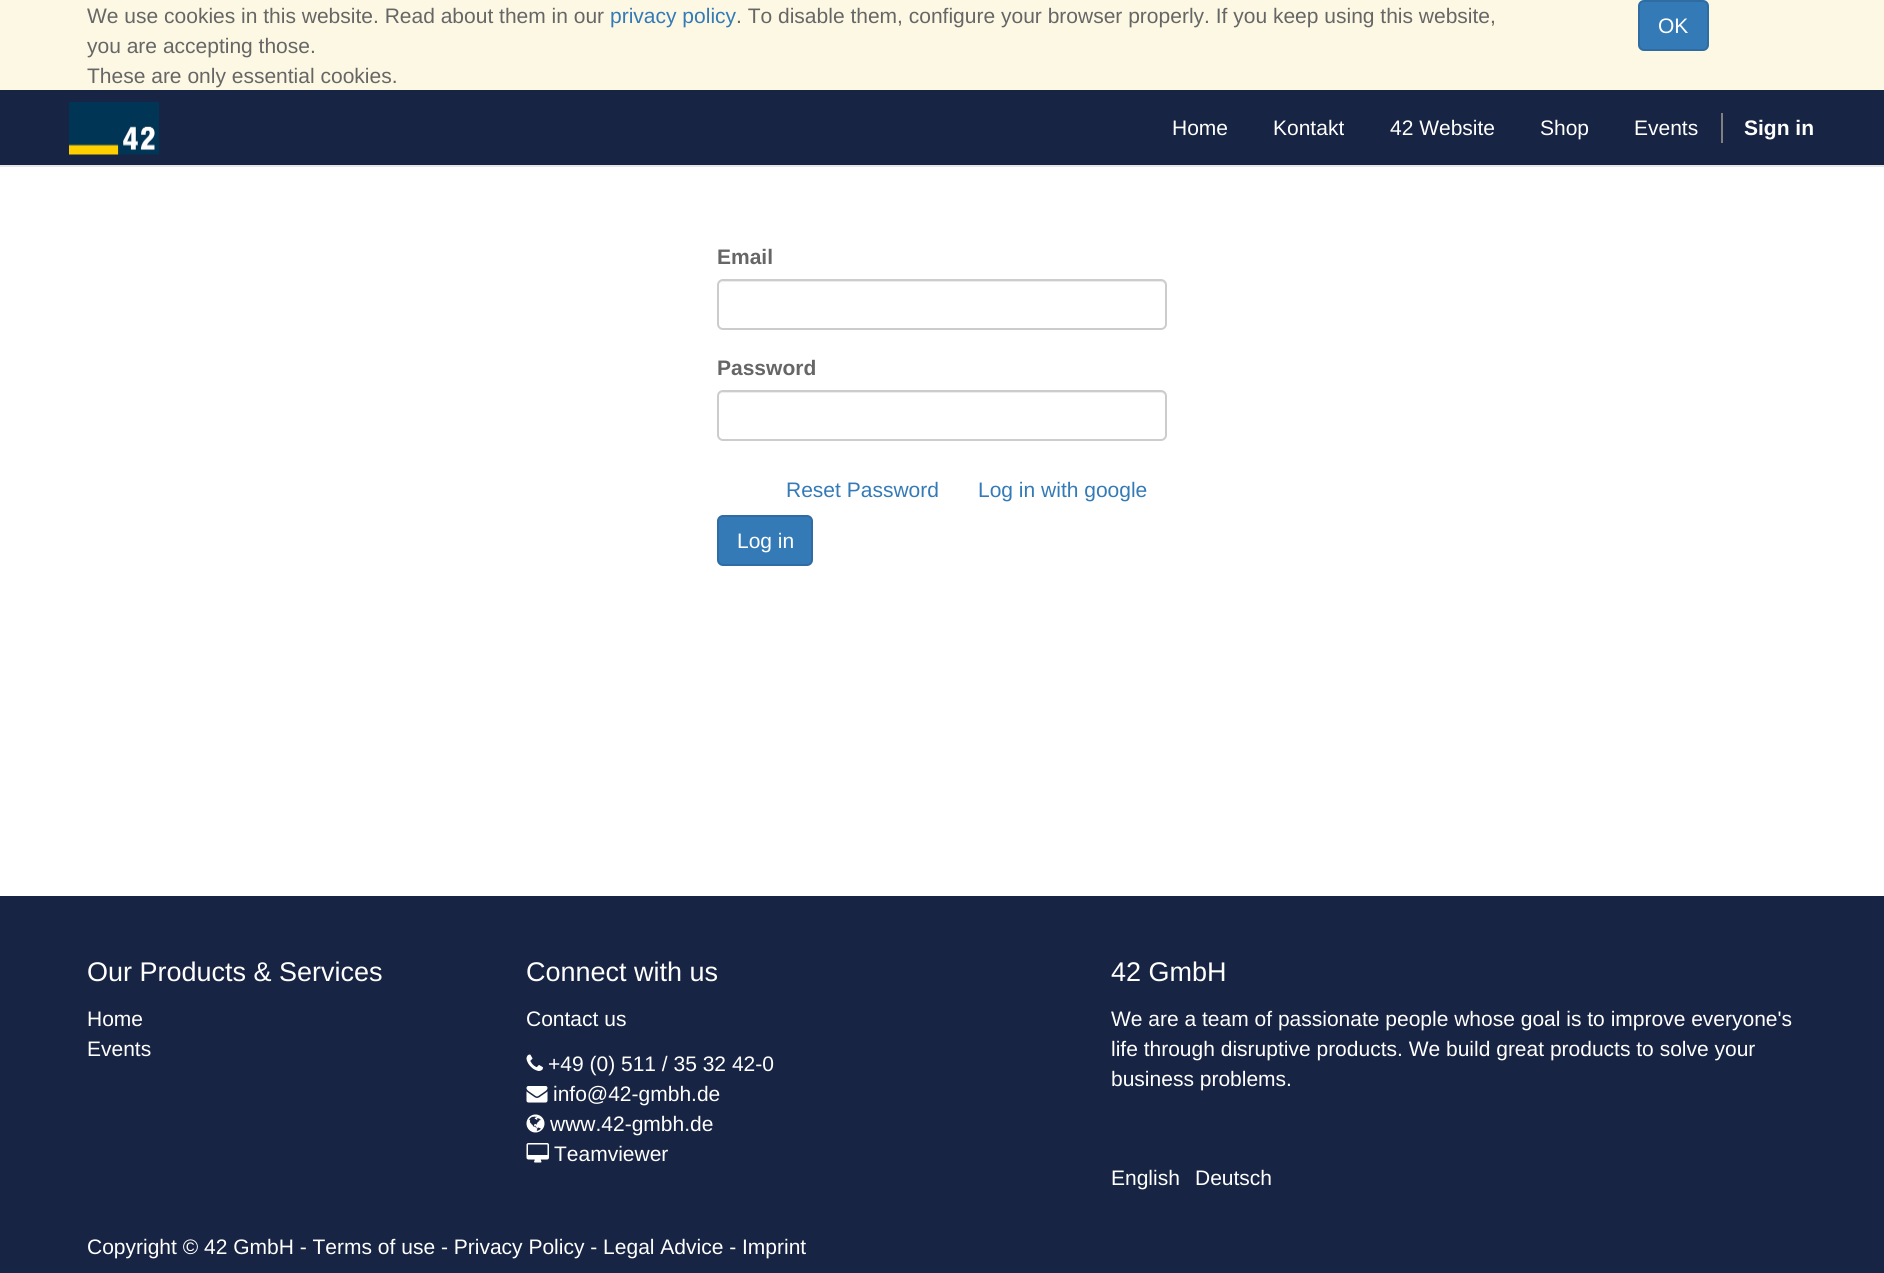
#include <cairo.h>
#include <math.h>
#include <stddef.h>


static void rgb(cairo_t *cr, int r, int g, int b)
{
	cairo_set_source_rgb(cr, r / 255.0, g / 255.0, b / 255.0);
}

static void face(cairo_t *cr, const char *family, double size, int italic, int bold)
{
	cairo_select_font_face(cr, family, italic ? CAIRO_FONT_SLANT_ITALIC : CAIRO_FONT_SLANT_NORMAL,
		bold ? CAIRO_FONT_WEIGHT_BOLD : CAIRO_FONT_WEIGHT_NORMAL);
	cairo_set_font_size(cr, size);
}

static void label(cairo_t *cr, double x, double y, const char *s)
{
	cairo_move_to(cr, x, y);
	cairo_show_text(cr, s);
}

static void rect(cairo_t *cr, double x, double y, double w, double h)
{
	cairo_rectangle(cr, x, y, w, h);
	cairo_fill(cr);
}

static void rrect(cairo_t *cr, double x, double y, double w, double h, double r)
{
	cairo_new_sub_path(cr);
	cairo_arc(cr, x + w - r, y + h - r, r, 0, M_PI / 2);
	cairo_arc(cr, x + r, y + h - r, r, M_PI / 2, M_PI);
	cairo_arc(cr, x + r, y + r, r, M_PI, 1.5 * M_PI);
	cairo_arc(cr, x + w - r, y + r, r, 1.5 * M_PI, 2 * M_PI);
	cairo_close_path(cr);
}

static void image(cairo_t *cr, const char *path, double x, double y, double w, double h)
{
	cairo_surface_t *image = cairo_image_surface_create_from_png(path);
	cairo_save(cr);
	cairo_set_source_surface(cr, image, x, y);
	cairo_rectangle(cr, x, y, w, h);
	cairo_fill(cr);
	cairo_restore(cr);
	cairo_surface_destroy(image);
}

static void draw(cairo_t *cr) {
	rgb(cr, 255, 255, 255);
	cairo_paint(cr);
	rgb(cr, 252, 248, 227);
	rect(cr, 0, 0, 1884, 90);
	face(cr, "Liberation Sans", 21, 0, 0);
	rgb(cr, 102, 102, 102);
	label(cr, 87, 23, "We use cookies in this website. Read about them in our");
	rgb(cr, 51, 122, 183);
	label(cr, 610, 23, "privacy policy");
	rgb(cr, 102, 102, 102);
	label(cr, 736, 23, ". To disable them, configure your browser properly. If you keep using this website,");
	label(cr, 87, 53, "you are accepting those.");
	rgb(cr, 51, 122, 183);
	rrect(cr, 1639, 1, 69, 49, 5);
	cairo_fill_preserve(cr);
	rgb(cr, 46, 109, 164);
	cairo_stroke(cr);
	rgb(cr, 255, 255, 255);
	label(cr, 1658, 33, "OK");
	rgb(cr, 102, 102, 102);
	label(cr, 87, 83, "These are only essential cookies.");
	rgb(cr, 24, 36, 67);
	rect(cr, 0, 90, 1884, 75);
	rgb(cr, 231, 231, 231);
	rect(cr, 0, 165, 1884, 2);
	image(cr, "image0.png", 69, 102, 90, 53);
	rgb(cr, 255, 255, 255);
	label(cr, 1172, 135, "Home");
	label(cr, 1273, 135, "Kontakt");
	label(cr, 1390, 135, "42 Website");
	label(cr, 1540, 135, "Shop");
	label(cr, 1634, 135, "Events");
	rgb(cr, 128, 128, 128);
	rect(cr, 1721, 113, 2, 30);
	face(cr, "Liberation Sans", 21, 0, 1);
	rgb(cr, 255, 255, 255);
	label(cr, 1744, 135, "Sign in");
	rgb(cr, 102, 102, 102);
	label(cr, 717, 264, "Email");
	rgb(cr, 236, 236, 236);
	cairo_new_path(cr);
	cairo_move_to(cr, 723, 282);
	cairo_line_to(cr, 1161, 282);
	cairo_curve_to(cr, 1163, 282, 1166, 284, 1166, 286);
	cairo_curve_to(cr, 1166, 283, 1164, 281, 1161, 281);
	cairo_line_to(cr, 724, 281);
	cairo_curve_to(cr, 722, 281, 721, 282, 720, 283);
	cairo_close_path(cr);
	cairo_fill(cr);
	rrect(cr, 718, 280, 448, 49, 5);
	rgb(cr, 204, 204, 204);
	cairo_stroke(cr);
	rgb(cr, 102, 102, 102);
	label(cr, 717, 375, "Password");
	rgb(cr, 236, 236, 236);
	cairo_new_path(cr);
	cairo_move_to(cr, 723, 393);
	cairo_line_to(cr, 1161, 393);
	cairo_curve_to(cr, 1163, 393, 1166, 395, 1166, 398);
	cairo_line_to(cr, 1166, 397);
	cairo_curve_to(cr, 1166, 394, 1164, 392, 1161, 392);
	cairo_line_to(cr, 724, 392);
	cairo_curve_to(cr, 722, 392, 721, 393, 720, 394);
	cairo_close_path(cr);
	cairo_fill(cr);
	rrect(cr, 718, 391, 448, 49, 5);
	rgb(cr, 204, 204, 204);
	cairo_stroke(cr);
	face(cr, "Liberation Sans", 21, 0, 0);
	rgb(cr, 51, 122, 183);
	label(cr, 786, 497, "Reset Password");
	label(cr, 978, 497, "Log in with google");
	rrect(cr, 718, 516, 94, 49, 5);
	cairo_fill_preserve(cr);
	rgb(cr, 46, 109, 164);
	cairo_stroke(cr);
	rgb(cr, 255, 255, 255);
	label(cr, 737, 548, "Log in");
	rgb(cr, 24, 36, 67);
	rect(cr, 0, 896, 1884, 377);
	face(cr, "Liberation Sans", 27, 0, 0);
	rgb(cr, 255, 255, 255);
	label(cr, 87, 981, "Our Products & Services");
	face(cr, "Liberation Sans", 21, 0, 0);
	label(cr, 87, 1026, "Home");
	label(cr, 87, 1056, "Events");
	face(cr, "Liberation Sans", 27, 0, 0);
	label(cr, 526, 981, "Connect with us");
	face(cr, "Liberation Sans", 21, 0, 0);
	label(cr, 526, 1026, "Contact us");
	image(cr, "image1.png", 526, 1054, 17, 17);
	label(cr, 548, 1071, "+49 (0) 511 / 35 32 42-0");
	image(cr, "image2.png", 526, 1086, 22, 17);
	label(cr, 553, 1101, "info@42-gmbh.de");
	image(cr, "image3.png", 526, 1114, 19, 19);
	label(cr, 550, 1131, "www.42-gmbh.de");
	image(cr, "image4.png", 526, 1143, 23, 20);
	label(cr, 554, 1161, "Teamviewer");
	face(cr, "Liberation Sans", 27, 0, 0);
	label(cr, 1111, 981, "42 GmbH");
	face(cr, "Liberation Sans", 21, 0, 0);
	label(cr, 1111, 1026, "We are a team of passionate people whose goal is to improve everyone's");
	label(cr, 1111, 1056, "life through disruptive products. We build great products to solve your");
	label(cr, 1111, 1086, "business problems.");
	label(cr, 1111, 1185, "English");
	label(cr, 1195, 1185, "Deutsch");
	label(cr, 87, 1254, "Copyright © 42 GmbH - Terms of use - Privacy Policy - Legal Advice - Imprint");
}

int main(void) {
	cairo_surface_t *surface = cairo_image_surface_create(CAIRO_FORMAT_RGB24, 1884, 1273);
	cairo_t *cr = cairo_create(surface);
	cairo_font_options_t *options = cairo_font_options_create();
	cairo_font_options_set_hint_metrics(options, CAIRO_HINT_METRICS_OFF);
	cairo_font_options_set_hint_style(options, CAIRO_HINT_STYLE_NONE);
	cairo_set_font_options(cr, options);
	cairo_set_miter_limit(cr, 4);
	draw(cr);
	cairo_surface_write_to_png(surface, "render.png");
	cairo_font_options_destroy(options);
	cairo_destroy(cr);
	cairo_surface_destroy(surface);
	return 0;
}
